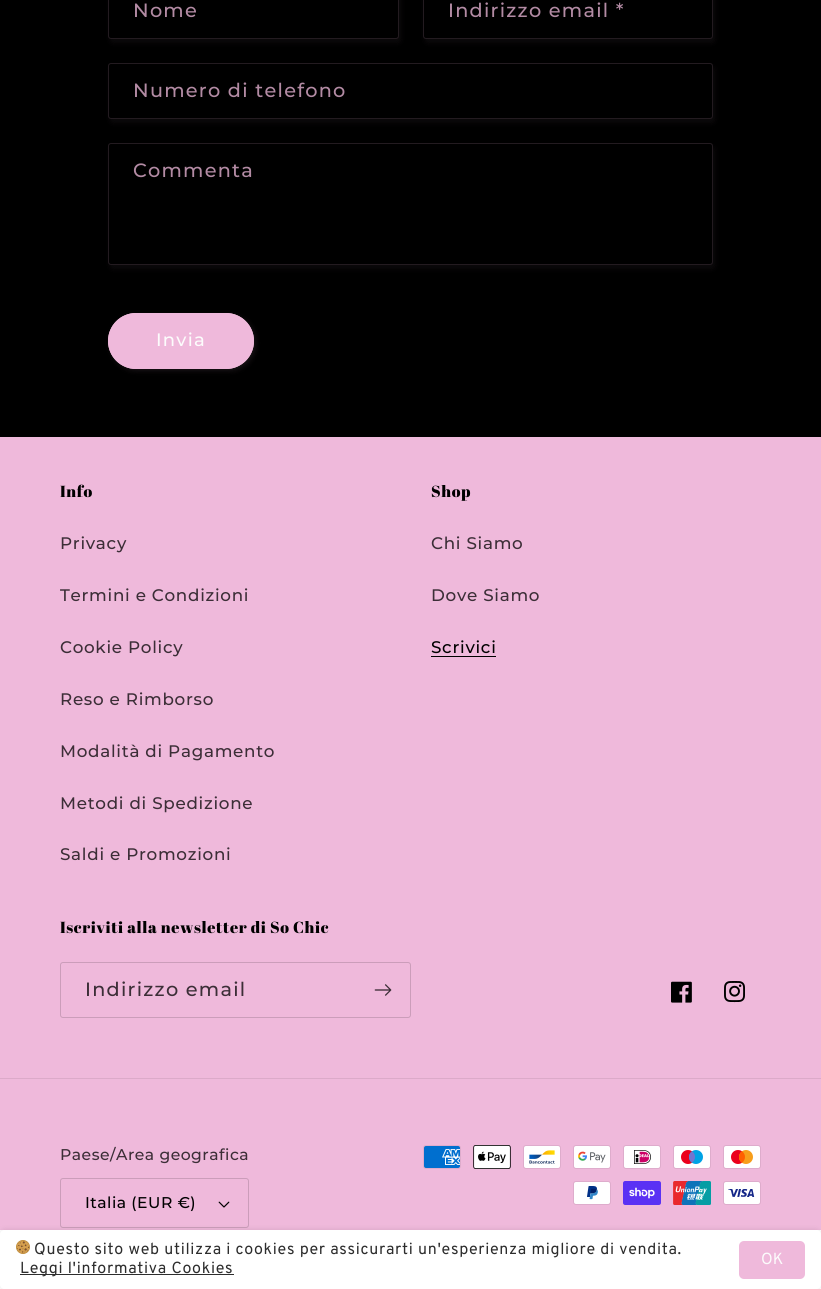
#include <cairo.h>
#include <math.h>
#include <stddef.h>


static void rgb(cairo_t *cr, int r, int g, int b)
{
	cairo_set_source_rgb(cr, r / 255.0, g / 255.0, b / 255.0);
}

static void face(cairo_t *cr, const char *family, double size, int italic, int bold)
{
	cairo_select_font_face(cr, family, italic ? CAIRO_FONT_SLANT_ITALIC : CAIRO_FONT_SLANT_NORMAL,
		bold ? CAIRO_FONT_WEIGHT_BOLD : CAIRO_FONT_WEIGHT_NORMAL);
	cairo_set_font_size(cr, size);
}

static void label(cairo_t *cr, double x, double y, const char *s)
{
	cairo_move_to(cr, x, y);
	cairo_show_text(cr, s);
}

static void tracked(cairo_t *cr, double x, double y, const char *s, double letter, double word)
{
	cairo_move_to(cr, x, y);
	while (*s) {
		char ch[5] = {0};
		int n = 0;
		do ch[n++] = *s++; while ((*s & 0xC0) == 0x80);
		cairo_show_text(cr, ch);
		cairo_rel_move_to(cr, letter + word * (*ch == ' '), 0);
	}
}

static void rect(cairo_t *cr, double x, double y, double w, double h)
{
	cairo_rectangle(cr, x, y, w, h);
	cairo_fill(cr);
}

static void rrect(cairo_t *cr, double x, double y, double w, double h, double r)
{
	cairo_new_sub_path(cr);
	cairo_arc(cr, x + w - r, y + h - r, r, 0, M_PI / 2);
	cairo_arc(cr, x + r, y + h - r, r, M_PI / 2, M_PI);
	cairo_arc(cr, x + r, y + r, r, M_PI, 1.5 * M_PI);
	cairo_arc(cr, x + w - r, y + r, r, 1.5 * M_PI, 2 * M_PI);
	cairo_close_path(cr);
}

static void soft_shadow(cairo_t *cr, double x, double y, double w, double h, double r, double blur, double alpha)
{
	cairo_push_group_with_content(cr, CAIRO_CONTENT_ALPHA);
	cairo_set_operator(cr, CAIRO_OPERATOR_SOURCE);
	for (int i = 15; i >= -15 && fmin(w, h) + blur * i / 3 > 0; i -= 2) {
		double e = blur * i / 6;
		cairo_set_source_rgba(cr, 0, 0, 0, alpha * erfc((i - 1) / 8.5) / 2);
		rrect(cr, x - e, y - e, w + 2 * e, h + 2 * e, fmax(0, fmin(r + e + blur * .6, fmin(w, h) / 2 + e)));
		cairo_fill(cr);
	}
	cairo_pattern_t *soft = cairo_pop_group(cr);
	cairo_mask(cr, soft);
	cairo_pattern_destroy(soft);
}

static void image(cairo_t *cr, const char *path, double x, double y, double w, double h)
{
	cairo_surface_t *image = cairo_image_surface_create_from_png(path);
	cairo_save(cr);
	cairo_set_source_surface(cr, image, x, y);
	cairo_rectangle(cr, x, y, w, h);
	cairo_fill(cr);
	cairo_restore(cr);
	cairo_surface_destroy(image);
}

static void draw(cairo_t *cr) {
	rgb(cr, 0, 0, 0);
	cairo_paint(cr);
	cairo_save(cr);
	cairo_set_fill_rule(cr, CAIRO_FILL_RULE_EVEN_ODD);
	cairo_new_path(cr);
	cairo_move_to(cr, 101, 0);
	cairo_line_to(cr, 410, 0);
	cairo_line_to(cr, 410, 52);
	cairo_line_to(cr, 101, 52);
	cairo_close_path(cr);
	cairo_move_to(cr, 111, -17);
	cairo_line_to(cr, 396, -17);
	cairo_curve_to(cr, 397.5, -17, 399, -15.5, 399, -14);
	cairo_line_to(cr, 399, 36);
	cairo_curve_to(cr, 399, 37.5, 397.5, 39, 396, 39);
	cairo_line_to(cr, 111, 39);
	cairo_curve_to(cr, 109.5, 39, 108, 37.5, 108, 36);
	cairo_line_to(cr, 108, -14);
	cairo_curve_to(cr, 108, -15.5, 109.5, -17, 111, -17);
	cairo_close_path(cr);
	cairo_clip(cr);
	rgb(cr, 239, 185, 219);
	soft_shadow(cr, 110, -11, 291, 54, 3, 2.5, 0.05);
	cairo_restore(cr);
	rrect(cr, 108.5, -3.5, 290, 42, 2.5);
	cairo_set_source_rgba(cr, 0.937, 0.725, 0.859, 0.15);
	cairo_set_line_width(cr, 1);
	cairo_stroke(cr);
	face(cr, "Montserrat Medium", 19.25, 0, 0);
	rgb(cr, 179, 139, 164);
	tracked(cr, 133, 17, "Nome", 1.25, 0);
	cairo_save(cr);
	cairo_set_fill_rule(cr, CAIRO_FILL_RULE_EVEN_ODD);
	cairo_new_path(cr);
	cairo_move_to(cr, 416, 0);
	cairo_line_to(cr, 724, 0);
	cairo_line_to(cr, 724, 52);
	cairo_line_to(cr, 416, 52);
	cairo_close_path(cr);
	cairo_move_to(cr, 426, -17);
	cairo_line_to(cr, 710, -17);
	cairo_curve_to(cr, 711.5, -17, 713, -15.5, 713, -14);
	cairo_line_to(cr, 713, 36);
	cairo_curve_to(cr, 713, 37.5, 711.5, 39, 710, 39);
	cairo_line_to(cr, 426, 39);
	cairo_curve_to(cr, 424.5, 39, 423, 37.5, 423, 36);
	cairo_line_to(cr, 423, -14);
	cairo_curve_to(cr, 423, -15.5, 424.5, -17, 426, -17);
	cairo_close_path(cr);
	cairo_clip(cr);
	rgb(cr, 239, 185, 219);
	soft_shadow(cr, 425, -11, 290, 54, 3, 2.5, 0.05);
	cairo_restore(cr);
	rrect(cr, 423.5, -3.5, 289, 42, 2.5);
	cairo_set_source_rgba(cr, 0.937, 0.725, 0.859, 0.15);
	cairo_stroke(cr);
	rgb(cr, 179, 139, 164);
	tracked(cr, 448, 17, "Indirizzo email *", 1.25, 0);
	cairo_save(cr);
	cairo_set_fill_rule(cr, CAIRO_FILL_RULE_EVEN_ODD);
	cairo_new_path(cr);
	cairo_move_to(cr, 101, 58);
	cairo_line_to(cr, 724, 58);
	cairo_line_to(cr, 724, 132);
	cairo_line_to(cr, 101, 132);
	cairo_close_path(cr);
	cairo_move_to(cr, 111, 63);
	cairo_line_to(cr, 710, 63);
	cairo_curve_to(cr, 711.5, 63, 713, 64.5, 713, 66);
	cairo_line_to(cr, 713, 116);
	cairo_curve_to(cr, 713, 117.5, 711.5, 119, 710, 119);
	cairo_line_to(cr, 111, 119);
	cairo_curve_to(cr, 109.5, 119, 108, 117.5, 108, 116);
	cairo_line_to(cr, 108, 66);
	cairo_curve_to(cr, 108, 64.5, 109.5, 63, 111, 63);
	cairo_close_path(cr);
	cairo_clip(cr);
	rgb(cr, 239, 185, 219);
	soft_shadow(cr, 110, 67, 605, 56, 3, 2.5, 0.05);
	cairo_restore(cr);
	rrect(cr, 108.5, 63.5, 604, 55, 2.5);
	cairo_set_source_rgba(cr, 0.937, 0.725, 0.859, 0.15);
	cairo_stroke(cr);
	rgb(cr, 179, 139, 164);
	tracked(cr, 133, 97, "Numero di telefono", 1.25, 0);
	cairo_save(cr);
	cairo_set_fill_rule(cr, CAIRO_FILL_RULE_EVEN_ODD);
	cairo_new_path(cr);
	cairo_move_to(cr, 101, 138);
	cairo_line_to(cr, 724, 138);
	cairo_line_to(cr, 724, 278);
	cairo_line_to(cr, 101, 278);
	cairo_close_path(cr);
	cairo_move_to(cr, 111, 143);
	cairo_line_to(cr, 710, 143);
	cairo_curve_to(cr, 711.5, 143, 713, 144.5, 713, 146);
	cairo_line_to(cr, 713, 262);
	cairo_curve_to(cr, 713, 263.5, 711.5, 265, 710, 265);
	cairo_line_to(cr, 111, 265);
	cairo_curve_to(cr, 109.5, 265, 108, 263.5, 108, 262);
	cairo_line_to(cr, 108, 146);
	cairo_curve_to(cr, 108, 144.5, 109.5, 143, 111, 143);
	cairo_close_path(cr);
	cairo_clip(cr);
	rgb(cr, 239, 185, 219);
	soft_shadow(cr, 110, 147, 605, 122, 3, 2.5, 0.05);
	cairo_restore(cr);
	rrect(cr, 108.5, 143.5, 604, 121, 2.5);
	cairo_set_source_rgba(cr, 0.937, 0.725, 0.859, 0.15);
	cairo_stroke(cr);
	rgb(cr, 179, 139, 164);
	tracked(cr, 133, 177, "Commenta", 1.25, 0);
	rgb(cr, 239, 185, 219);
	soft_shadow(cr, 110, 315, 146, 56, 28, 2.5, 0.1);
	rgb(cr, 239, 185, 219);
	rrect(cr, 108, 313, 146, 56, 28);
	cairo_fill(cr);
	rrect(cr, 108.5, 313.5, 145, 55, 27.5);
	cairo_stroke(cr);
	face(cr, "Montserrat Medium", 18, 0, 0);
	rgb(cr, 252, 252, 252);
	tracked(cr, 156, 346, "Invia", 1.25, 0);
	rgb(cr, 239, 185, 219);
	rect(cr, 0, 437, 821, 793);
	face(cr, "Abril Fatface", 16, 0, 0);
	rgb(cr, 0, 0, 0);
	tracked(cr, 60, 497, "Info", 0.6, 0);
	face(cr, "Montserrat Medium", 16.75, 0, 0);
	rgb(cr, 60, 46, 55);
	tracked(cr, 60, 549, "Privacy", 0.72, 0);
	tracked(cr, 60, 601, "Termini e Condizioni", 0.72, 0);
	tracked(cr, 60, 653, "Cookie Policy", 0.72, 0);
	tracked(cr, 60, 705, "Reso e Rimborso", 0.72, 0);
	tracked(cr, 60, 757, "Modalità di Pagamento", 0.72, 0);
	tracked(cr, 60, 809, "Metodi di Spedizione", 0.72, 0);
	tracked(cr, 60, 860, "Saldi e Promozioni", 0.72, 0);
	face(cr, "Abril Fatface", 16, 0, 0);
	rgb(cr, 0, 0, 0);
	tracked(cr, 431, 497, "Shop", 0.6, 0);
	face(cr, "Montserrat Medium", 16.75, 0, 0);
	rgb(cr, 60, 46, 55);
	tracked(cr, 431, 549, "Chi Siamo", 0.72, 0);
	tracked(cr, 431, 601, "Dove Siamo", 0.72, 0);
	rgb(cr, 0, 0, 0);
	tracked(cr, 431, 653, "Scrivici", 0.72, 0);
	rect(cr, 431, 656, 65, 1);
	face(cr, "Abril Fatface", 16, 0, 0);
	tracked(cr, 60, 933, "Iscriviti alla newsletter di So Chic", 0.6, 0);
	rrect(cr, 60.5, 962.5, 350, 55, 2.5);
	rgb(cr, 203, 157, 186);
	cairo_stroke(cr);
	face(cr, "Montserrat Medium", 19.25, 0, 0);
	rgb(cr, 60, 46, 55);
	tracked(cr, 85, 996, "Indirizzo email", 1.25, 0);
	image(cr, "image0.png", 374, 984, 18, 12);
	image(cr, "image1.png", 671, 981, 21, 22);
	image(cr, "image2.png", 724, 981, 21, 22);
	rgb(cr, 220, 170, 201);
	rect(cr, 0, 1078, 821, 1);
	face(cr, "Montserrat Medium", 15.6, 0, 0);
	rgb(cr, 60, 46, 55);
	tracked(cr, 60, 1160, "Paese/Area geografica", 0.5, 0);
	image(cr, "image3.png", 218, 1201, 12, 7);
	rrect(cr, 60.5, 1178.5, 188, 49, 2.5);
	rgb(cr, 203, 157, 186);
	cairo_stroke(cr);
	rgb(cr, 0, 0, 0);
	tracked(cr, 85, 1208, "Italia (EUR €)", 0.5, 0);
	image(cr, "image4.png", 423, 1145, 38, 24);
	image(cr, "image5.png", 473, 1145, 38, 24);
	image(cr, "image6.png", 523, 1145, 38, 24);
	image(cr, "image7.png", 573, 1145, 38, 24);
	image(cr, "image8.png", 623, 1145, 38, 24);
	image(cr, "image9.png", 673, 1145, 38, 24);
	image(cr, "image10.png", 723, 1145, 38, 24);
	image(cr, "image11.png", 573, 1181, 38, 24);
	image(cr, "image12.png", 623, 1181, 38, 24);
	image(cr, "image13.png", 673, 1181, 38, 24);
	image(cr, "image14.png", 723, 1181, 38, 24);
	rgb(cr, 255, 255, 255);
	rect(cr, 0, 1230, 821, 59);
	cairo_save(cr);
	cairo_set_fill_rule(cr, CAIRO_FILL_RULE_EVEN_ODD);
	cairo_new_path(cr);
	cairo_move_to(cr, 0, 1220);
	cairo_line_to(cr, 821, 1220);
	cairo_line_to(cr, 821, 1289);
	cairo_line_to(cr, 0, 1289);
	cairo_close_path(cr);
	cairo_move_to(cr, 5, 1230);
	cairo_line_to(cr, 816, 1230);
	cairo_curve_to(cr, 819, 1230, 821, 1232, 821, 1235);
	cairo_line_to(cr, 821, 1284);
	cairo_curve_to(cr, 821, 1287, 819, 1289, 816, 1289);
	cairo_line_to(cr, 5, 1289);
	cairo_curve_to(cr, 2, 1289, 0, 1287, 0, 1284);
	cairo_line_to(cr, 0, 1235);
	cairo_curve_to(cr, 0, 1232, 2, 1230, 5, 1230);
	cairo_close_path(cr);
	cairo_clip(cr);
	rgb(cr, 0, 0, 0);
	soft_shadow(cr, 0, 1230, 821, 59, 5, 3, 0.12);
	cairo_restore(cr);
	image(cr, "image15.png", 16, 1240, 14, 14);
	face(cr, "Overpass", 16, 0, 0);
	rgb(cr, 45, 45, 45);
	tracked(cr, 34, 1254, "Questo sito web utilizza i cookies per assicurarti un'esperienza migliore di vendita.", 0.72, 0);
	rect(cr, 20, 1274, 214, 1);
	tracked(cr, 20, 1273, "Leggi l'informativa Cookies", 0.72, 0);
	rgb(cr, 239, 185, 219);
	rrect(cr, 739, 1241, 66, 38, 5);
	cairo_fill(cr);
	rgb(cr, 252, 252, 252);
	label(cr, 761, 1264, "OK");
}

int main(void) {
	cairo_surface_t *surface = cairo_image_surface_create(CAIRO_FORMAT_RGB24, 821, 1289);
	cairo_t *cr = cairo_create(surface);
	cairo_font_options_t *options = cairo_font_options_create();
	cairo_font_options_set_hint_metrics(options, CAIRO_HINT_METRICS_OFF);
	cairo_font_options_set_hint_style(options, CAIRO_HINT_STYLE_NONE);
	cairo_set_font_options(cr, options);
	cairo_set_miter_limit(cr, 4);
	draw(cr);
	cairo_surface_write_to_png(surface, "render.png");
	cairo_font_options_destroy(options);
	cairo_destroy(cr);
	cairo_surface_destroy(surface);
	return 0;
}
